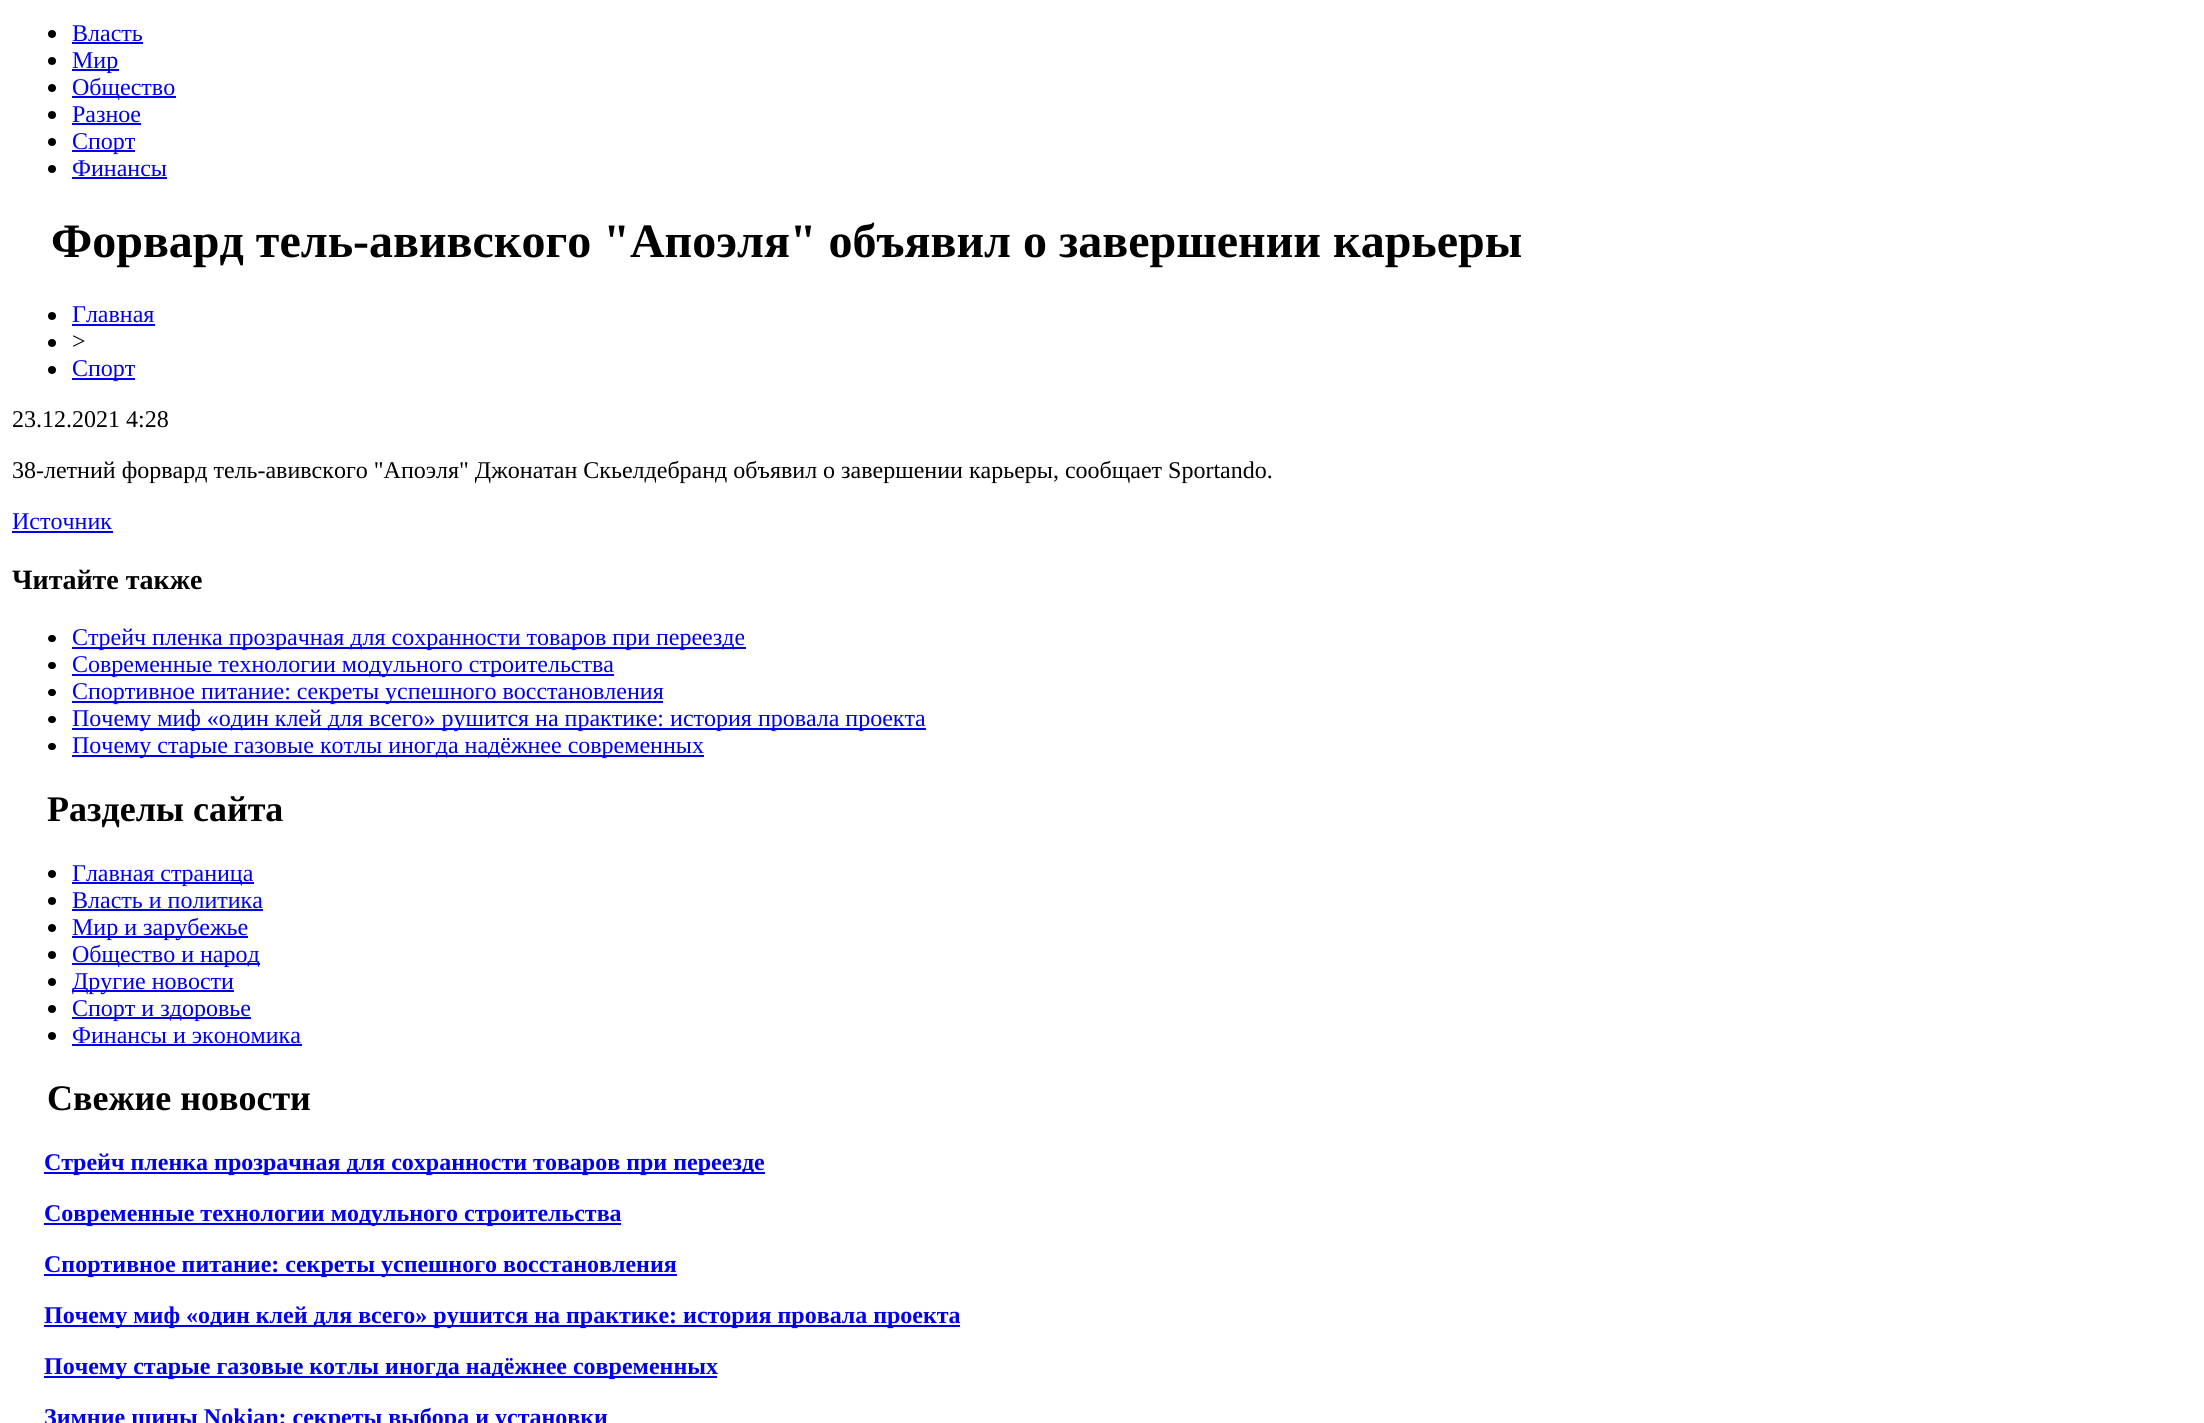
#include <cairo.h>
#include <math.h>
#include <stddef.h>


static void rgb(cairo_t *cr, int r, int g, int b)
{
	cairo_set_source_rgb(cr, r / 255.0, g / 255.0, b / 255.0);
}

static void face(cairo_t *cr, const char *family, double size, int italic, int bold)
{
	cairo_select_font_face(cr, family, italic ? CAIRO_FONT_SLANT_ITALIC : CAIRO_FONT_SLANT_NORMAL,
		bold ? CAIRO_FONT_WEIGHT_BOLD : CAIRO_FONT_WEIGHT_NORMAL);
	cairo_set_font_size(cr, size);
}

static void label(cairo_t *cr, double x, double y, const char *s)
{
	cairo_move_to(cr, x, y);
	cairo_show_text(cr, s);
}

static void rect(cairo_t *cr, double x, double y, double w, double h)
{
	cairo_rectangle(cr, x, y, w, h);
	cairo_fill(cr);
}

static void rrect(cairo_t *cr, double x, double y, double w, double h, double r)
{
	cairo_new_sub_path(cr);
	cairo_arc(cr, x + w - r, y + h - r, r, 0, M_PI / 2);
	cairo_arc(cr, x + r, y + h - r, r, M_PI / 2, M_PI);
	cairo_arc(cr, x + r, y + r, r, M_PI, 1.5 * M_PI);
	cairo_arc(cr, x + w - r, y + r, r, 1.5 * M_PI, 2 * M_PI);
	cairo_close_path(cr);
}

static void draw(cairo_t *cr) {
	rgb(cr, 255, 255, 255);
	cairo_paint(cr);
	rgb(cr, 0, 0, 0);
	cairo_arc(cr, 52, 34, 4, 0, 2 * M_PI);
	cairo_fill(cr);
	face(cr, "Liberation Serif", 24, 0, 0);
	rgb(cr, 0, 0, 238);
	label(cr, 72, 41, "Власть");
	rect(cr, 72, 42, 71, 2);
	rgb(cr, 0, 0, 0);
	cairo_new_path(cr);
	cairo_arc(cr, 52, 61, 4, 0, 2 * M_PI);
	cairo_fill(cr);
	rgb(cr, 0, 0, 238);
	rect(cr, 72, 69, 47, 2);
	label(cr, 72, 68, "Мир");
	rgb(cr, 0, 0, 0);
	cairo_new_path(cr);
	cairo_arc(cr, 52, 88, 4, 0, 2 * M_PI);
	cairo_fill(cr);
	rgb(cr, 0, 0, 238);
	rect(cr, 72, 96, 104, 2);
	label(cr, 72, 95, "Общество");
	rgb(cr, 0, 0, 0);
	cairo_new_path(cr);
	cairo_arc(cr, 52, 115, 4, 0, 2 * M_PI);
	cairo_fill(cr);
	rgb(cr, 0, 0, 238);
	label(cr, 72, 122, "Разное");
	rect(cr, 72, 123, 69, 2);
	rgb(cr, 0, 0, 0);
	cairo_new_path(cr);
	cairo_arc(cr, 52, 142, 4, 0, 2 * M_PI);
	cairo_fill(cr);
	rgb(cr, 0, 0, 238);
	rect(cr, 72, 150, 63, 2);
	label(cr, 72, 149, "Спорт");
	rgb(cr, 0, 0, 0);
	cairo_new_path(cr);
	cairo_arc(cr, 52, 169, 4, 0, 2 * M_PI);
	cairo_fill(cr);
	rgb(cr, 0, 0, 238);
	label(cr, 72, 176, "Финансы");
	rect(cr, 72, 177, 95, 2);
	face(cr, "Liberation Serif", 48, 0, 1);
	rgb(cr, 0, 0, 0);
	label(cr, 51, 257, "Форвард тель-авивского \"Апоэля\" объявил о завершении карьеры");
	cairo_new_path(cr);
	cairo_arc(cr, 52, 316, 4, 0, 2 * M_PI);
	cairo_fill(cr);
	face(cr, "Liberation Serif", 24, 0, 0);
	rgb(cr, 0, 0, 238);
	label(cr, 72, 322, "Главная");
	rect(cr, 72, 324, 83, 2);
	rgb(cr, 0, 0, 0);
	cairo_new_path(cr);
	cairo_arc(cr, 52, 343, 4, 0, 2 * M_PI);
	cairo_fill(cr);
	label(cr, 72, 349, ">");
	cairo_new_path(cr);
	cairo_arc(cr, 52, 370, 4, 0, 2 * M_PI);
	cairo_fill(cr);
	rgb(cr, 0, 0, 238);
	rect(cr, 72, 378, 63, 2);
	label(cr, 72, 376, "Спорт");
	rgb(cr, 0, 0, 0);
	label(cr, 12, 427, "23.12.2021 4:28");
	label(cr, 12, 478, "38-летний форвард тель-авивского \"Апоэля\" Джонатан Скьелдебранд объявил о завершении карьеры, сообщает Sportando.");
	rgb(cr, 0, 0, 238);
	label(cr, 12, 529, "Источник");
	rect(cr, 12, 531, 101, 2);
	face(cr, "Liberation Serif", 28, 0, 1);
	rgb(cr, 0, 0, 0);
	label(cr, 12, 589, "Читайте также");
	rrect(cr, 48, 635, 8, 7, 3.5);
	cairo_fill(cr);
	rgb(cr, 0, 0, 238);
	rect(cr, 72, 647, 674, 2);
	face(cr, "Liberation Serif", 24, 0, 0);
	label(cr, 72, 645, "Стрейч пленка прозрачная для сохранности товаров при переезде");
	rgb(cr, 0, 0, 0);
	rrect(cr, 48, 662, 8, 7, 3.5);
	cairo_fill(cr);
	rgb(cr, 0, 0, 238);
	rect(cr, 72, 674, 542, 2);
	label(cr, 72, 672, "Современные технологии модульного строительства");
	rgb(cr, 0, 0, 0);
	rrect(cr, 48, 689, 8, 7, 3.5);
	cairo_fill(cr);
	rgb(cr, 0, 0, 238);
	rect(cr, 72, 701, 591, 2);
	label(cr, 72, 699, "Спортивное питание: секреты успешного восстановления");
	rgb(cr, 0, 0, 0);
	rrect(cr, 48, 716, 8, 7, 3.5);
	cairo_fill(cr);
	rgb(cr, 0, 0, 238);
	rect(cr, 72, 728, 854, 2);
	label(cr, 72, 726, "Почему миф «один клей для всего» рушится на практике: история провала проекта");
	rgb(cr, 0, 0, 0);
	rrect(cr, 48, 743, 8, 7, 3.5);
	cairo_fill(cr);
	rgb(cr, 0, 0, 238);
	rect(cr, 72, 755, 632, 2);
	label(cr, 72, 753, "Почему старые газовые котлы иногда надёжнее современных");
	face(cr, "Liberation Serif", 36, 0, 1);
	rgb(cr, 0, 0, 0);
	label(cr, 47, 821, "Разделы сайта");
	cairo_new_path(cr);
	cairo_arc(cr, 52, 874, 4, 0, 2 * M_PI);
	cairo_fill(cr);
	rgb(cr, 0, 0, 238);
	rect(cr, 72, 882, 182, 2);
	face(cr, "Liberation Serif", 24, 0, 0);
	label(cr, 72, 881, "Главная страница");
	rgb(cr, 0, 0, 0);
	cairo_new_path(cr);
	cairo_arc(cr, 52, 901, 4, 0, 2 * M_PI);
	cairo_fill(cr);
	rgb(cr, 0, 0, 238);
	label(cr, 72, 908, "Власть и политика");
	rect(cr, 72, 909, 191, 2);
	rgb(cr, 0, 0, 0);
	cairo_new_path(cr);
	cairo_arc(cr, 52, 928, 4, 0, 2 * M_PI);
	cairo_fill(cr);
	rgb(cr, 0, 0, 238);
	rect(cr, 72, 936, 176, 2);
	label(cr, 72, 935, "Мир и зарубежье");
	rgb(cr, 0, 0, 0);
	cairo_new_path(cr);
	cairo_arc(cr, 52, 955, 4, 0, 2 * M_PI);
	cairo_fill(cr);
	rgb(cr, 0, 0, 238);
	rect(cr, 72, 963, 188, 2);
	label(cr, 72, 962, "Общество и народ");
	rgb(cr, 0, 0, 0);
	cairo_new_path(cr);
	cairo_arc(cr, 52, 982, 4, 0, 2 * M_PI);
	cairo_fill(cr);
	rgb(cr, 0, 0, 238);
	rect(cr, 72, 990, 162, 2);
	label(cr, 72, 989, "Другие новости");
	rgb(cr, 0, 0, 0);
	cairo_new_path(cr);
	cairo_arc(cr, 52, 1009, 4, 0, 2 * M_PI);
	cairo_fill(cr);
	rgb(cr, 0, 0, 238);
	rect(cr, 72, 1017, 179, 2);
	label(cr, 72, 1016, "Спорт и здоровье");
	rgb(cr, 0, 0, 0);
	cairo_new_path(cr);
	cairo_arc(cr, 52, 1036, 4, 0, 2 * M_PI);
	cairo_fill(cr);
	rgb(cr, 0, 0, 238);
	label(cr, 72, 1043, "Финансы и экономика");
	rect(cr, 72, 1044, 230, 2);
	face(cr, "Liberation Serif", 36, 0, 1);
	rgb(cr, 0, 0, 0);
	label(cr, 47, 1110, "Свежие новости");
	rgb(cr, 0, 0, 238);
	rect(cr, 44, 1172, 721, 2);
	face(cr, "Liberation Serif", 24, 0, 1);
	label(cr, 44, 1170, "Стрейч пленка прозрачная для сохранности товаров при переезде");
	rect(cr, 44, 1223, 577, 2);
	label(cr, 44, 1221, "Современные технологии модульного строительства");
	rect(cr, 44, 1274, 633, 2);
	label(cr, 44, 1272, "Спортивное питание: секреты успешного восстановления");
	rect(cr, 44, 1325, 916, 2);
	label(cr, 44, 1323, "Почему миф «один клей для всего» рушится на практике: история провала проекта");
	rect(cr, 44, 1376, 673, 2);
	label(cr, 44, 1374, "Почему старые газовые котлы иногда надёжнее современных");
	label(cr, 44, 1425, "Зимние шины Nokian: секреты выбора и установки");
}

int main(void) {
	cairo_surface_t *surface = cairo_image_surface_create(CAIRO_FORMAT_RGB24, 2204, 1423);
	cairo_t *cr = cairo_create(surface);
	cairo_font_options_t *options = cairo_font_options_create();
	cairo_font_options_set_hint_metrics(options, CAIRO_HINT_METRICS_OFF);
	cairo_font_options_set_hint_style(options, CAIRO_HINT_STYLE_NONE);
	cairo_set_font_options(cr, options);
	cairo_set_miter_limit(cr, 4);
	draw(cr);
	cairo_surface_write_to_png(surface, "render.png");
	cairo_font_options_destroy(options);
	cairo_destroy(cr);
	cairo_surface_destroy(surface);
	return 0;
}
